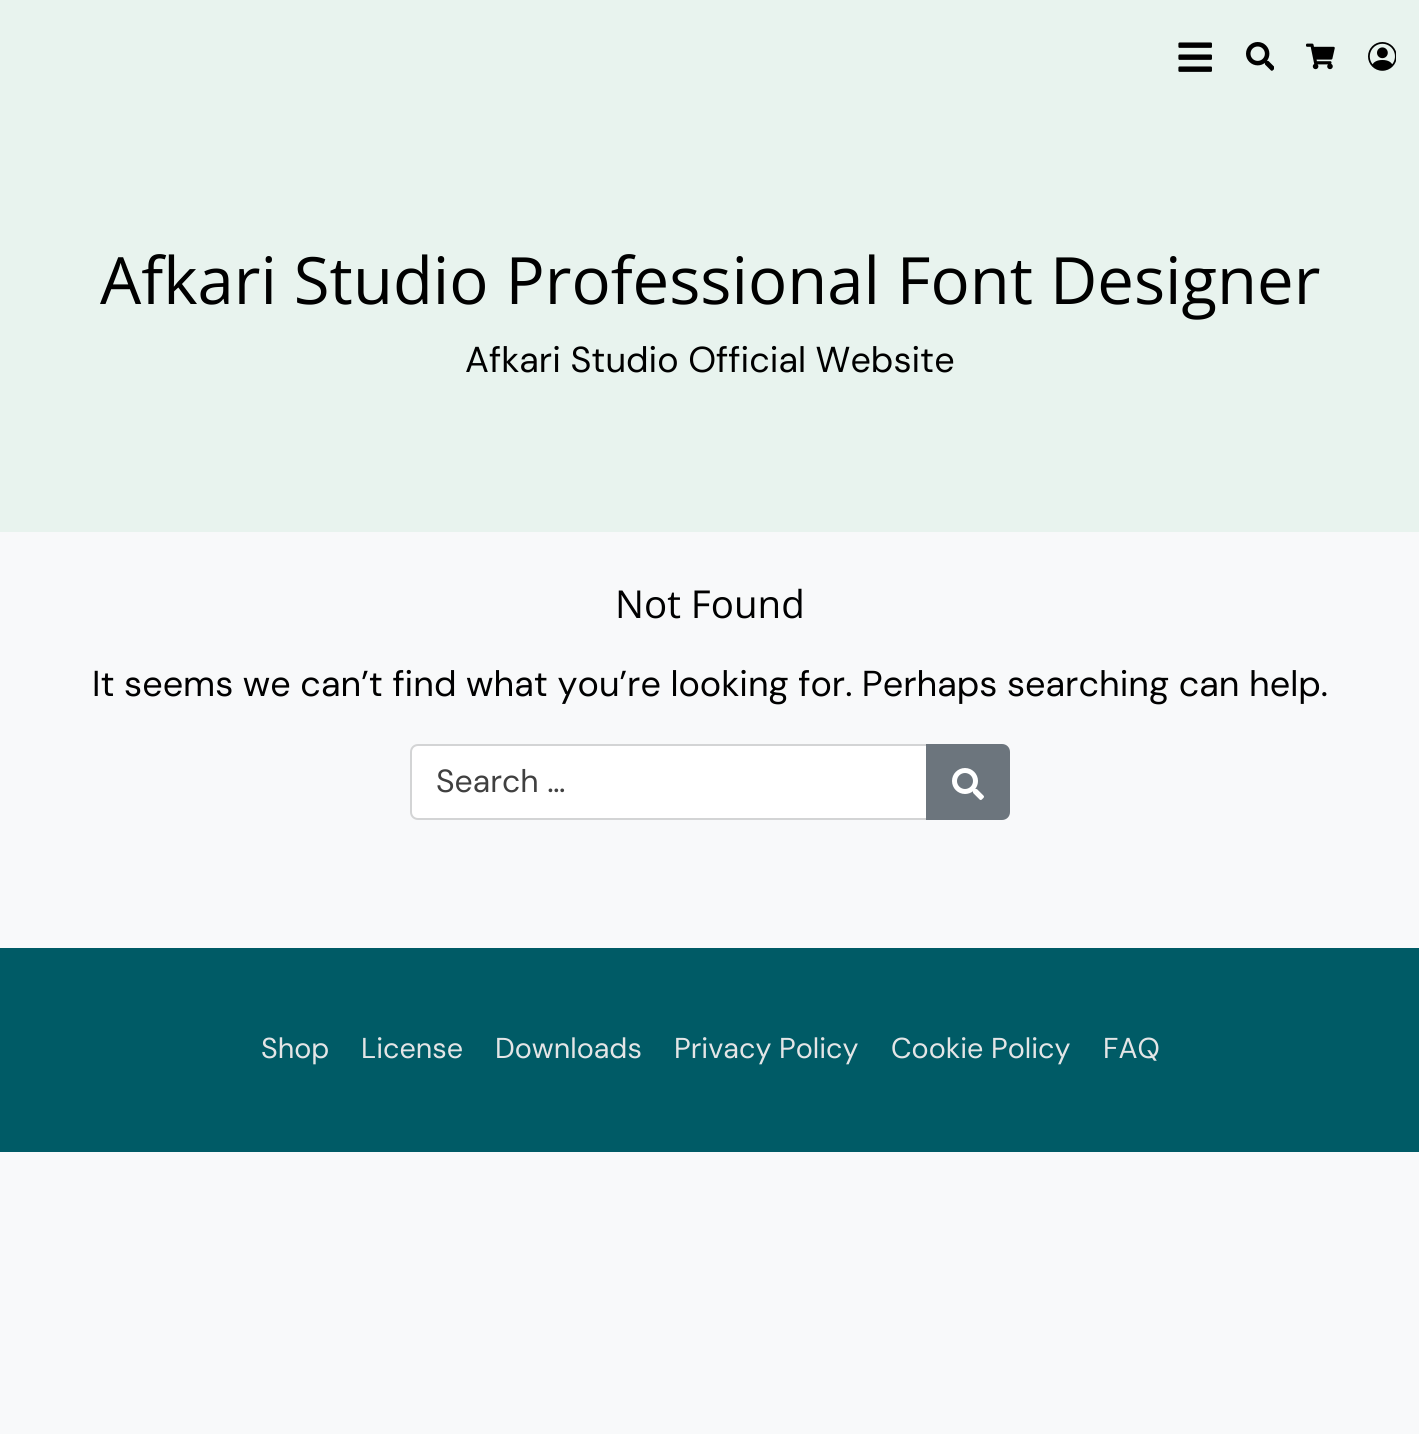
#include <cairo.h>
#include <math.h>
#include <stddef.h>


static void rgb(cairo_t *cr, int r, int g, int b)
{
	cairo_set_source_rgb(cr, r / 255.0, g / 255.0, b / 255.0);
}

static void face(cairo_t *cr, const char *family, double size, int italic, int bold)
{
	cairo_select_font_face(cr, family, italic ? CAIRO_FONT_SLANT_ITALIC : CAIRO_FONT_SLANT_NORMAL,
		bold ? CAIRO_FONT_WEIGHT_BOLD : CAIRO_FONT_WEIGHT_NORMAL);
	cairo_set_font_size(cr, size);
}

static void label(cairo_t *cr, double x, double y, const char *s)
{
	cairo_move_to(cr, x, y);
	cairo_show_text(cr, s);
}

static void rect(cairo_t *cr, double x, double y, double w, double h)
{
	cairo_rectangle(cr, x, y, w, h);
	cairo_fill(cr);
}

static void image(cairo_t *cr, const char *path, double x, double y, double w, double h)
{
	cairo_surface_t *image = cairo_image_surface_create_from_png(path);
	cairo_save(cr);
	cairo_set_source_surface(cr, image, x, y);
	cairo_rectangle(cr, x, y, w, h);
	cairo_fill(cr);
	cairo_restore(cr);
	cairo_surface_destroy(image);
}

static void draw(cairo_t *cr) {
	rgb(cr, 248, 249, 250);
	cairo_paint(cr);
	rgb(cr, 232, 243, 238);
	rect(cr, 0, 0, 1419, 532);
	image(cr, "image0.png", 1178, 42, 34, 30);
	image(cr, "image1.png", 1246, 42, 28, 29);
	image(cr, "image2.png", 1306, 43, 29, 27);
	image(cr, "image3.png", 1368, 42, 28, 29);
	face(cr, "Open Sans", 65.25, 0, 0);
	rgb(cr, 0, 0, 0);
	label(cr, 100, 304, "Afkari Studio Professional Font Designer");
	face(cr, "DM Sans", 36, 0, 0);
	label(cr, 465, 372, "Afkari Studio Official Website");
	face(cr, "Open Sans", 38.5, 0, 0);
	label(cr, 615, 618, "Not Found");
	face(cr, "DM Sans", 36, 0, 0);
	label(cr, 92, 696, "It seems we can’t find what you’re looking for. Perhaps searching can help.");
	rgb(cr, 255, 255, 255);
	cairo_new_path(cr);
	cairo_move_to(cr, 418, 746);
	cairo_line_to(cr, 926, 746);
	cairo_line_to(cr, 926, 818);
	cairo_line_to(cr, 418, 818);
	cairo_curve_to(cr, 414.5, 818, 412, 815.5, 412, 812);
	cairo_line_to(cr, 412, 752);
	cairo_curve_to(cr, 412, 748.5, 414.5, 746, 418, 746);
	cairo_close_path(cr);
	cairo_fill(cr);
	cairo_new_path(cr);
	cairo_move_to(cr, 418, 745);
	cairo_line_to(cr, 927, 745);
	cairo_line_to(cr, 927, 819);
	cairo_line_to(cr, 418, 819);
	cairo_curve_to(cr, 414, 819, 411, 816, 411, 812);
	cairo_line_to(cr, 411, 752);
	cairo_curve_to(cr, 411, 748, 414, 745, 418, 745);
	cairo_close_path(cr);
	cairo_set_source_rgba(cr, 0, 0, 0, 0.15);
	cairo_stroke(cr);
	face(cr, "DM Sans", 32, 0, 0);
	rgb(cr, 64, 64, 64);
	label(cr, 436, 792, "Search …");
	rgb(cr, 108, 117, 125);
	cairo_new_path(cr);
	cairo_move_to(cr, 927, 745);
	cairo_line_to(cr, 1002, 745);
	cairo_curve_to(cr, 1006, 745, 1009, 748, 1009, 752);
	cairo_line_to(cr, 1009, 812);
	cairo_curve_to(cr, 1009, 816, 1006, 819, 1002, 819);
	cairo_line_to(cr, 927, 819);
	cairo_close_path(cr);
	cairo_fill_preserve(cr);
	cairo_stroke(cr);
	image(cr, "image4.png", 952, 768, 32, 32);
	rgb(cr, 0, 91, 102);
	rect(cr, 0, 948, 1419, 204);
	face(cr, "DM Sans", 28.75, 0, 0);
	rgb(cr, 228, 229, 230);
	label(cr, 261, 1058, "Shop");
	label(cr, 361, 1058, "License");
	label(cr, 495, 1058, "Downloads");
	label(cr, 674, 1058, "Privacy Policy");
	label(cr, 891, 1058, "Cookie Policy");
	label(cr, 1103, 1058, "FAQ");
}

int main(void) {
	cairo_surface_t *surface = cairo_image_surface_create(CAIRO_FORMAT_RGB24, 1419, 1434);
	cairo_t *cr = cairo_create(surface);
	cairo_font_options_t *options = cairo_font_options_create();
	cairo_font_options_set_hint_metrics(options, CAIRO_HINT_METRICS_OFF);
	cairo_font_options_set_hint_style(options, CAIRO_HINT_STYLE_NONE);
	cairo_set_font_options(cr, options);
	cairo_set_miter_limit(cr, 4);
	draw(cr);
	cairo_surface_write_to_png(surface, "render.png");
	cairo_font_options_destroy(options);
	cairo_destroy(cr);
	cairo_surface_destroy(surface);
	return 0;
}
